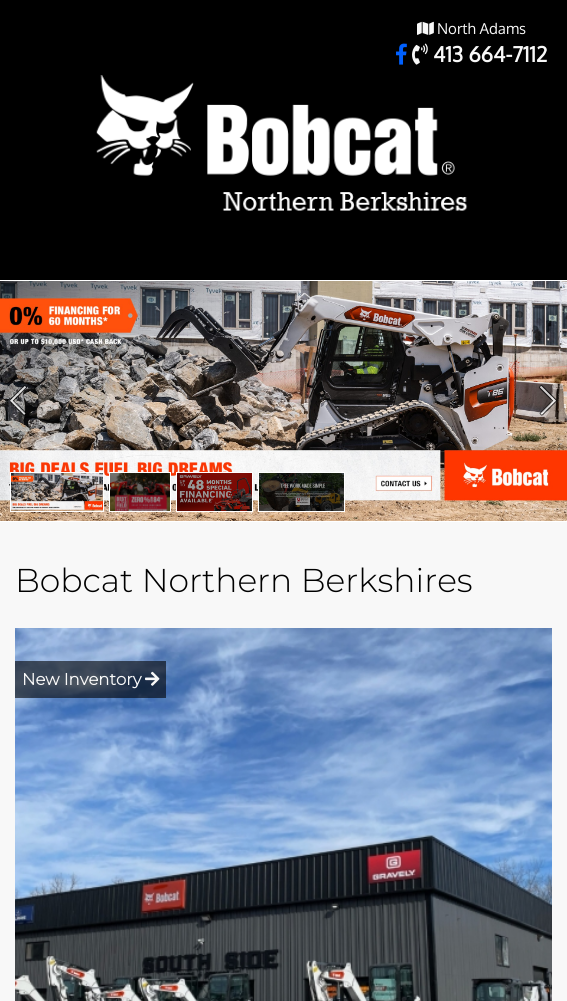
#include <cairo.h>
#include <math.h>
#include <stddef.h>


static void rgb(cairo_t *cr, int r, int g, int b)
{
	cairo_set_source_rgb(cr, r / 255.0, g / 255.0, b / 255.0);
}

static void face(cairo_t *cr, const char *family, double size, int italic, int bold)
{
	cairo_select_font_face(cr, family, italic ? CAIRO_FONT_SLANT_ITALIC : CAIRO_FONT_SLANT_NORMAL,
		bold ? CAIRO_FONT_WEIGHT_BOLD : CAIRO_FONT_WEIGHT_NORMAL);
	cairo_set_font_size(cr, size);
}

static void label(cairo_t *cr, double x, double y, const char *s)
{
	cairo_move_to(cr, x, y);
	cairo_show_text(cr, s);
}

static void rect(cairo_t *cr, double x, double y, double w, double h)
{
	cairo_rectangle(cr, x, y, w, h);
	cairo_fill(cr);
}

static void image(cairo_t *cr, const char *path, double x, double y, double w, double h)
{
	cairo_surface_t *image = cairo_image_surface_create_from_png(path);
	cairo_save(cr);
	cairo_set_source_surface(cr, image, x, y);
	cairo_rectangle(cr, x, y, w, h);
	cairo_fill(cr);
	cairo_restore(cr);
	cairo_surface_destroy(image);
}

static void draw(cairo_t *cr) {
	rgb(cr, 248, 248, 248);
	cairo_paint(cr);
	rgb(cr, 0, 0, 0);
	rect(cr, 0, 0, 567, 280);
	image(cr, "image0.png", 417, 21, 17, 14);
	face(cr, "Oxygen", 15, 0, 0);
	rgb(cr, 248, 248, 248);
	label(cr, 437, 34, "North Adams");
	image(cr, "image1.png", 396, 43, 11, 22);
	image(cr, "image2.png", 412, 43, 16, 22);
	face(cr, "Oxygen", 21, 0, 1);
	label(cr, 433, 62, "413 664-7112");
	image(cr, "image3.png", 96, 75, 372, 136);
	rgb(cr, 255, 255, 255);
	rect(cr, 0, 280, 567, 242);
	image(cr, "image4.png", 0, 281, 567, 240);
	image(cr, "image5.png", 10, 385, 18, 31);
	image(cr, "image6.png", 539, 385, 18, 31);
	cairo_rectangle(cr, 10.5, 472.5, 93, 39);
	cairo_set_line_width(cr, 1);
	cairo_stroke(cr);
	image(cr, "image7.png", 11, 473, 92, 38);
	rgb(cr, 0, 0, 0);
	cairo_rectangle(cr, 109.5, 472.5, 61, 39);
	cairo_fill_preserve(cr);
	rgb(cr, 255, 255, 255);
	cairo_stroke(cr);
	image(cr, "image8.png", 110, 473, 60, 38);
	rgb(cr, 0, 0, 0);
	cairo_rectangle(cr, 176.5, 472.5, 76, 39);
	cairo_fill_preserve(cr);
	rgb(cr, 255, 255, 255);
	cairo_stroke(cr);
	image(cr, "image9.png", 177, 473, 75, 38);
	rgb(cr, 0, 0, 0);
	cairo_rectangle(cr, 258.5, 472.5, 86, 39);
	cairo_fill_preserve(cr);
	rgb(cr, 255, 255, 255);
	cairo_stroke(cr);
	image(cr, "image10.png", 259, 473, 85, 38);
	face(cr, "Montserrat Thin", 33, 0, 0);
	rgb(cr, 0, 0, 0);
	label(cr, 15, 592, "Bobcat Northern Berkshires");
	image(cr, "image11.png", 15, 628, 537, 373);
	cairo_set_source_rgba(cr, 0, 0, 0, 0.6);
	rect(cr, 15, 661, 151, 37);
	face(cr, "Montserrat", 16.5, 0, 1);
	rgb(cr, 248, 248, 248);
	label(cr, 22, 685, "New Inventory");
	image(cr, "image12.png", 145, 671, 15, 15);
}

int main(void) {
	cairo_surface_t *surface = cairo_image_surface_create(CAIRO_FORMAT_RGB24, 567, 1001);
	cairo_t *cr = cairo_create(surface);
	cairo_font_options_t *options = cairo_font_options_create();
	cairo_font_options_set_hint_metrics(options, CAIRO_HINT_METRICS_OFF);
	cairo_font_options_set_hint_style(options, CAIRO_HINT_STYLE_NONE);
	cairo_set_font_options(cr, options);
	cairo_set_miter_limit(cr, 4);
	draw(cr);
	cairo_surface_write_to_png(surface, "render.png");
	cairo_font_options_destroy(options);
	cairo_destroy(cr);
	cairo_surface_destroy(surface);
	return 0;
}
